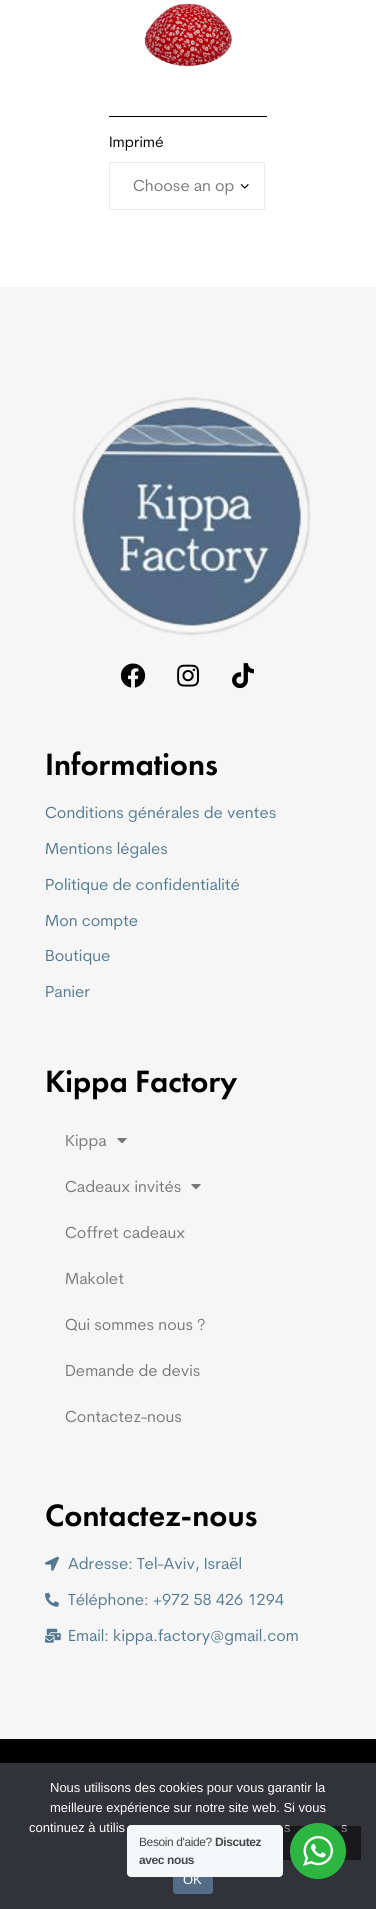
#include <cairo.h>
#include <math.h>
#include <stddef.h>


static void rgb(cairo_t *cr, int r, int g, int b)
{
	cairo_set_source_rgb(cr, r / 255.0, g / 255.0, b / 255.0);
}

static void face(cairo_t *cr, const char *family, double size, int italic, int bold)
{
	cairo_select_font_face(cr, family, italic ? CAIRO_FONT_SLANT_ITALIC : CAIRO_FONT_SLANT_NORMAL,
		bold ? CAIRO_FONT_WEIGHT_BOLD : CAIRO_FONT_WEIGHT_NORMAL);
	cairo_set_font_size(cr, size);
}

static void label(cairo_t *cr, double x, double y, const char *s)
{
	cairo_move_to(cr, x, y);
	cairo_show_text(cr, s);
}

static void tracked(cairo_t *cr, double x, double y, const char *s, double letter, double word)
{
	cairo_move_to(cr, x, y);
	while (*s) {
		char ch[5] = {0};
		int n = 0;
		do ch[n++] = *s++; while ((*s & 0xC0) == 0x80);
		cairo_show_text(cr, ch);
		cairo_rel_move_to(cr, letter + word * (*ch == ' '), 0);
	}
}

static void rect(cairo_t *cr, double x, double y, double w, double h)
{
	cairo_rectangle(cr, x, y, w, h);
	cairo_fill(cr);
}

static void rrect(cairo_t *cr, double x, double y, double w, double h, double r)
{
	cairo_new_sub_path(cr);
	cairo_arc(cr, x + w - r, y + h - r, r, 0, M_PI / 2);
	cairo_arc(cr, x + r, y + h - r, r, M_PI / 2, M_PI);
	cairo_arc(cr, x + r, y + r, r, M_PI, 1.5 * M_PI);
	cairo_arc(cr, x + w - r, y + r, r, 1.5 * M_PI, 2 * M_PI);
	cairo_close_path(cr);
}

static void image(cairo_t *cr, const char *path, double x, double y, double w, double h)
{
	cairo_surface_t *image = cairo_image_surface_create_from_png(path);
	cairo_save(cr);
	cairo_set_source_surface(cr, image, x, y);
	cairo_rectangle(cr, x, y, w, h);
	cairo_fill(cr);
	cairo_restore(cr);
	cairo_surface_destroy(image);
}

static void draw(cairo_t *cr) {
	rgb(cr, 255, 255, 255);
	cairo_paint(cr);
	image(cr, "image0.png", 144, 3, 89, 64);
	rgb(cr, 0, 0, 0);
	rect(cr, 109, 116, 158, 1);
	face(cr, "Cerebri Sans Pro", 15, 0, 0);
	label(cr, 109, 147, "Imprimé");
	image(cr, "image1.png", 240, 184, 9, 5);
	cairo_rectangle(cr, 109.5, 162.5, 155, 47);
	rgb(cr, 235, 235, 235);
	cairo_set_line_width(cr, 1);
	cairo_stroke(cr);
	face(cr, "Cerebri Sans Pro", 16, 0, 0);
	rgb(cr, 120, 120, 120);
	label(cr, 133, 191, "Choose an op");
	rgb(cr, 246, 246, 246);
	rect(cr, 0, 287, 376, 1452);
	image(cr, "image2.png", 72, 397, 239, 239);
	image(cr, "image3.png", 120, 663, 26, 25);
	image(cr, "image4.png", 177, 664, 22, 23);
	image(cr, "image5.png", 232, 663, 22, 26);
	face(cr, "Futura PT Medium", 32, 0, 0);
	rgb(cr, 0, 0, 0);
	label(cr, 45, 775, "Informations");
	face(cr, "Cerebri Sans Pro", 16, 0, 0);
	rgb(cr, 82, 121, 144);
	label(cr, 45, 818, "Conditions générales de ventes");
	label(cr, 45, 854, "Mentions légales");
	label(cr, 45, 890, "Politique de confidentialité");
	label(cr, 45, 926, "Mon compte");
	label(cr, 45, 961, "Boutique");
	label(cr, 45, 997, "Panier");
	face(cr, "Futura PT Medium", 32, 0, 0);
	rgb(cr, 0, 0, 0);
	label(cr, 45, 1092, "Kippa Factory");
	face(cr, "Cerebri Sans Pro", 16, 0, 0);
	rgb(cr, 120, 120, 120);
	label(cr, 65, 1146, "Kippa");
	image(cr, "image6.png", 117, 1138, 10, 6);
	label(cr, 65, 1192, "Cadeaux invités");
	image(cr, "image6.png", 191, 1184, 10, 6);
	label(cr, 65, 1238, "Coffret cadeaux");
	label(cr, 65, 1284, "Makolet");
	label(cr, 65, 1330, "Qui sommes nous ?");
	label(cr, 65, 1376, "Demande de devis");
	label(cr, 65, 1422, "Contactez-nous");
	face(cr, "Futura PT Medium", 32, 0, 0);
	rgb(cr, 0, 0, 0);
	label(cr, 45, 1526, "Contactez-nous");
	image(cr, "image7.png", 45, 1556, 14, 15);
	face(cr, "Cerebri Sans Pro", 16, 0, 0);
	rgb(cr, 82, 121, 144);
	label(cr, 68, 1569, "Adresse: Tel-Aviv, Israël");
	image(cr, "image8.png", 45, 1592, 14, 15);
	label(cr, 68, 1605, "Téléphone: +972 58 426 1294");
	image(cr, "image9.png", 45, 1628, 16, 15);
	label(cr, 68, 1641, "Email: kippa.factory@gmail.com");
	rgb(cr, 0, 0, 0);
	rect(cr, 0, 1739, 376, 24);
	rgb(cr, 50, 50, 58);
	rect(cr, 0, 1763, 376, 146);
	face(cr, "Liberation Sans", 13, 0, 0);
	rgb(cr, 255, 255, 255);
	label(cr, 50, 1792, "Nous utilisons des cookies pour vous garantir la");
	label(cr, 50, 1812, "meilleure expérience sur notre site web. Si vous");
	label(cr, 29, 1832, "continuez à utilis");
	label(cr, 284, 1832, "s");
	label(cr, 341, 1832, "s");
	cairo_set_source_rgba(cr, 0, 0, 0, 0.5);
	rect(cr, 281, 1826, 80, 34);
	rgb(cr, 85, 108, 136);
	rrect(cr, 173, 1864, 40, 30, 3);
	cairo_fill(cr);
	rgb(cr, 255, 255, 255);
	label(cr, 183, 1884, "OK");
	rgb(cr, 245, 247, 249);
	rrect(cr, 127, 1825, 156, 52, 4);
	cairo_fill(cr);
	face(cr, "Liberation Sans", 12, 0, 0);
	rgb(cr, 67, 71, 78);
	tracked(cr, 139, 1846, "Besoin d'aide?", -0.4, 0);
	face(cr, "Liberation Sans", 12, 0, 1);
	tracked(cr, 215, 1846, "Discutez", -0.4, 0);
	tracked(cr, 139, 1864, "avec nous", -0.4, 0);
	rgb(cr, 45, 183, 66);
	cairo_new_path(cr);
	cairo_arc(cr, 318, 1851, 28, 0, 2 * M_PI);
	cairo_fill(cr);
	image(cr, "image10.png", 303, 1836, 30, 30);
}

int main(void) {
	cairo_surface_t *surface = cairo_image_surface_create(CAIRO_FORMAT_RGB24, 376, 1909);
	cairo_t *cr = cairo_create(surface);
	cairo_font_options_t *options = cairo_font_options_create();
	cairo_font_options_set_hint_metrics(options, CAIRO_HINT_METRICS_OFF);
	cairo_font_options_set_hint_style(options, CAIRO_HINT_STYLE_NONE);
	cairo_set_font_options(cr, options);
	cairo_set_miter_limit(cr, 4);
	draw(cr);
	cairo_surface_write_to_png(surface, "render.png");
	cairo_font_options_destroy(options);
	cairo_destroy(cr);
	cairo_surface_destroy(surface);
	return 0;
}
